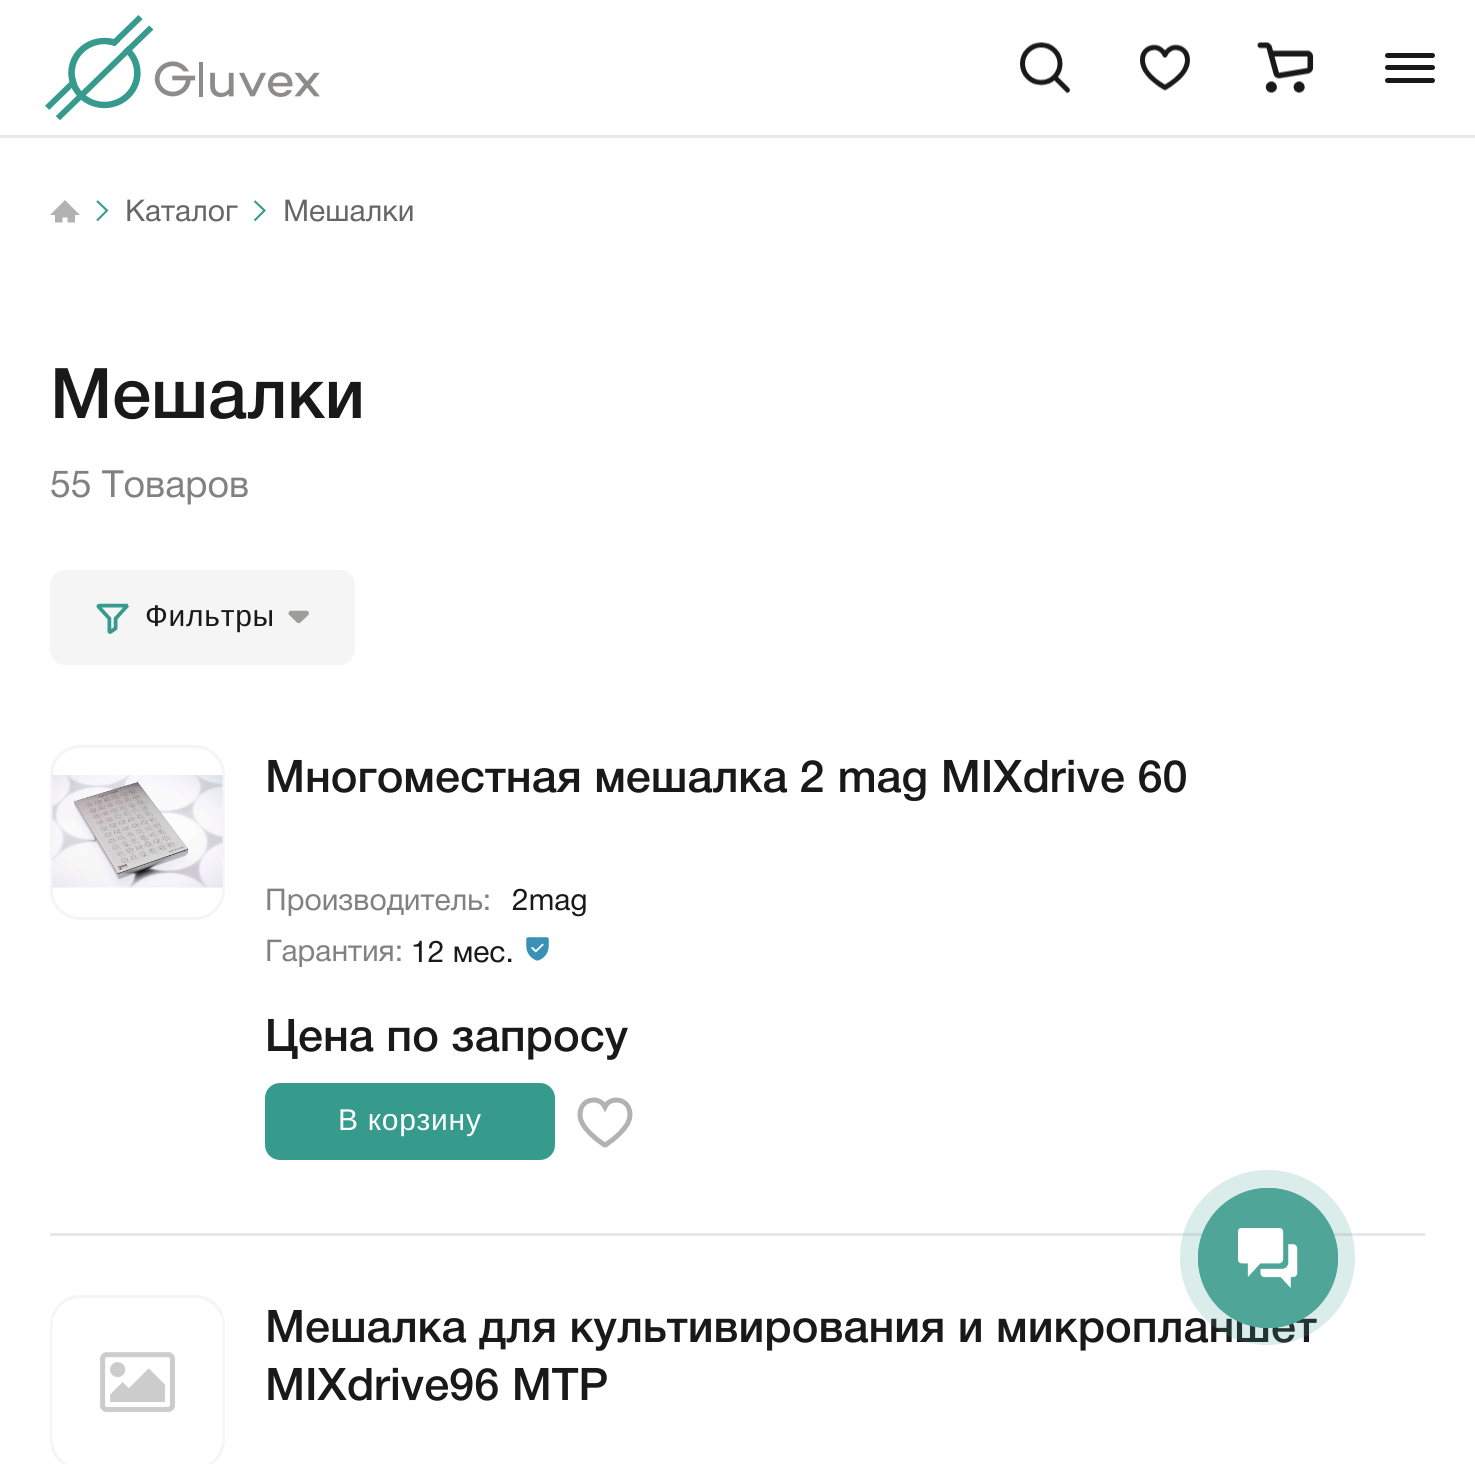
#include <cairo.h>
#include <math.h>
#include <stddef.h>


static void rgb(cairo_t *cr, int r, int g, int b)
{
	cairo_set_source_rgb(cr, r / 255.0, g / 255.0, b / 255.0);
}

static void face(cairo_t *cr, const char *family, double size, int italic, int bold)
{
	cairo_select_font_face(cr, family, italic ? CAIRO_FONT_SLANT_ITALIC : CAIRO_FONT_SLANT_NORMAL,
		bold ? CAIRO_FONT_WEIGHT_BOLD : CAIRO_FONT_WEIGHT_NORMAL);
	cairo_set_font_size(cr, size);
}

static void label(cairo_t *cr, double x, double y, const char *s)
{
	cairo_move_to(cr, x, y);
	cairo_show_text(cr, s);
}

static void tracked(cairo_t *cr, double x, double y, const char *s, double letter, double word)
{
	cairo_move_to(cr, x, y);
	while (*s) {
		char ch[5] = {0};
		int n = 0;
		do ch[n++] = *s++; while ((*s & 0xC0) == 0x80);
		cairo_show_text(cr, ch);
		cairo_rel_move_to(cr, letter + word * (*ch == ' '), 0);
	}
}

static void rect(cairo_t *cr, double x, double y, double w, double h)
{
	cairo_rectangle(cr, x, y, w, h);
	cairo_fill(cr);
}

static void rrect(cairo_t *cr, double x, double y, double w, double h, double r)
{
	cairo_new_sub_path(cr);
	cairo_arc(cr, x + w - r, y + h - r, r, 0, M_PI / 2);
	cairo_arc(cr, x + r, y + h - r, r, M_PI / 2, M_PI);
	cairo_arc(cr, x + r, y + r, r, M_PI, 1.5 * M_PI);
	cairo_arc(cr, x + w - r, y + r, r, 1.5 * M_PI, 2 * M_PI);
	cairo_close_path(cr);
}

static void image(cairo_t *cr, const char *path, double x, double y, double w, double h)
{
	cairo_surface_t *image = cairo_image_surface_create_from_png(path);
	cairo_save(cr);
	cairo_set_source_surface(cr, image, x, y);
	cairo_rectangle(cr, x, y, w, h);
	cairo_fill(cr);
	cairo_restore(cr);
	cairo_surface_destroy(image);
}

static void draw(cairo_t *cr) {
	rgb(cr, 232, 232, 232);
	cairo_paint(cr);
	rgb(cr, 255, 255, 255);
	rect(cr, 0, 0, 1475, 135);
	image(cr, "image0.png", 45, 15, 275, 105);
	image(cr, "image1.png", 1020, 42, 50, 52);
	image(cr, "image2.png", 1140, 44, 50, 47);
	image(cr, "image3.png", 1257, 42, 57, 51);
	rgb(cr, 25, 25, 25);
	rrect(cr, 1385, 65, 50, 5, 2.5);
	cairo_fill(cr);
	rrect(cr, 1385, 53, 50, 5, 2.5);
	cairo_fill(cr);
	rrect(cr, 1385, 78, 50, 5, 2.5);
	cairo_fill(cr);
	rgb(cr, 255, 255, 255);
	rect(cr, 0, 138, 1475, 1326);
	image(cr, "image4.png", 50, 200, 30, 23);
	cairo_new_path(cr);
	cairo_move_to(cr, 97, 201);
	cairo_line_to(cr, 107, 210.5);
	cairo_line_to(cr, 97, 220.5);
	rgb(cr, 54, 155, 141);
	cairo_set_line_width(cr, 2.1);
	cairo_stroke(cr);
	face(cr, "Helvetica Neue", 30, 0, 0);
	rgb(cr, 102, 102, 102);
	label(cr, 125, 221, "Каталог");
	cairo_new_path(cr);
	cairo_move_to(cr, 254.5, 201);
	cairo_line_to(cr, 264.5, 210.5);
	cairo_line_to(cr, 254.5, 220.5);
	rgb(cr, 54, 155, 141);
	cairo_stroke(cr);
	rgb(cr, 102, 102, 102);
	label(cr, 283, 221, "Мешалки");
	face(cr, "Helvetica Neue Medium", 70, 0, 0);
	rgb(cr, 25, 25, 25);
	label(cr, 50, 418, "Мешалки");
	face(cr, "Helvetica Neue", 37.5, 0, 0);
	rgb(cr, 129, 129, 129);
	label(cr, 50, 497, "55 Товаров");
	rgb(cr, 245, 245, 245);
	rrect(cr, 50, 570, 305, 95, 15);
	cairo_fill(cr);
	image(cr, "image5.png", 96, 603, 33, 31);
	face(cr, "Liberation Sans", 30, 0, 0);
	rgb(cr, 25, 25, 25);
	tracked(cr, 145, 626, "Фильтры", 0.75, 0);
	image(cr, "image6.png", 288, 610, 21, 14);
	rrect(cr, 51.5, 746.5, 172, 172, 28.5);
	rgb(cr, 245, 245, 245);
	cairo_set_line_width(cr, 3);
	cairo_stroke(cr);
	image(cr, "image7.png", 52, 775, 171, 113);
	face(cr, "Helvetica Neue Medium", 45, 0, 0);
	rgb(cr, 25, 25, 25);
	label(cr, 265, 792, "Многоместная мешалка 2 mag MIXdrive 60");
	face(cr, "Helvetica Neue", 30, 0, 0);
	rgb(cr, 129, 129, 129);
	label(cr, 265, 910, "Производитель:");
	rgb(cr, 25, 25, 25);
	label(cr, 512, 910, "2mag");
	rgb(cr, 129, 129, 129);
	label(cr, 265, 961, "Гарантия:");
	rgb(cr, 25, 25, 25);
	label(cr, 411, 962, "12 мес.");
	image(cr, "image8.png", 526, 937, 23, 24);
	face(cr, "Helvetica Neue Medium", 45, 0, 0);
	label(cr, 265, 1051, "Цена по запросу");
	rgb(cr, 54, 155, 141);
	rrect(cr, 266.5, 1084.5, 287, 74, 13.5);
	cairo_fill_preserve(cr);
	cairo_stroke(cr);
	face(cr, "Liberation Sans", 30, 0, 0);
	rgb(cr, 255, 255, 255);
	tracked(cr, 338, 1130, "В корзину", 0.75, 0);
	image(cr, "image9.png", 577, 1097, 56, 51);
	rgb(cr, 232, 232, 232);
	rect(cr, 50, 1233, 1375, 3);
	rrect(cr, 51.5, 1296.5, 172, 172, 28.5);
	rgb(cr, 245, 245, 245);
	cairo_stroke(cr);
	image(cr, "image10.png", 52, 1317, 171, 128);
	face(cr, "Helvetica Neue Medium", 45, 0, 0);
	rgb(cr, 25, 25, 25);
	label(cr, 265, 1342, "Мешалка для культивирования и микропланшет");
	label(cr, 265, 1400, "MIXdrive96 MTP");
	cairo_set_source_rgba(cr, 0.31, 0.647, 0.596, 0.2);
	cairo_new_path(cr);
	cairo_arc(cr, 1267.5, 1257.5, 87.5, 0, 2 * M_PI);
	cairo_fill(cr);
	cairo_arc(cr, 1268, 1258, 69, 0, 2 * M_PI);
	rgb(cr, 79, 165, 152);
	cairo_set_line_width(cr, 2);
	cairo_stroke(cr);
	cairo_arc(cr, 1268, 1258, 70, 0, 2 * M_PI);
	cairo_fill(cr);
	image(cr, "image11.png", 1238, 1228, 60, 60);
}

int main(void) {
	cairo_surface_t *surface = cairo_image_surface_create(CAIRO_FORMAT_RGB24, 1475, 1464);
	cairo_t *cr = cairo_create(surface);
	cairo_font_options_t *options = cairo_font_options_create();
	cairo_font_options_set_hint_metrics(options, CAIRO_HINT_METRICS_OFF);
	cairo_font_options_set_hint_style(options, CAIRO_HINT_STYLE_NONE);
	cairo_set_font_options(cr, options);
	cairo_set_miter_limit(cr, 4);
	draw(cr);
	cairo_surface_write_to_png(surface, "render.png");
	cairo_font_options_destroy(options);
	cairo_destroy(cr);
	cairo_surface_destroy(surface);
	return 0;
}
